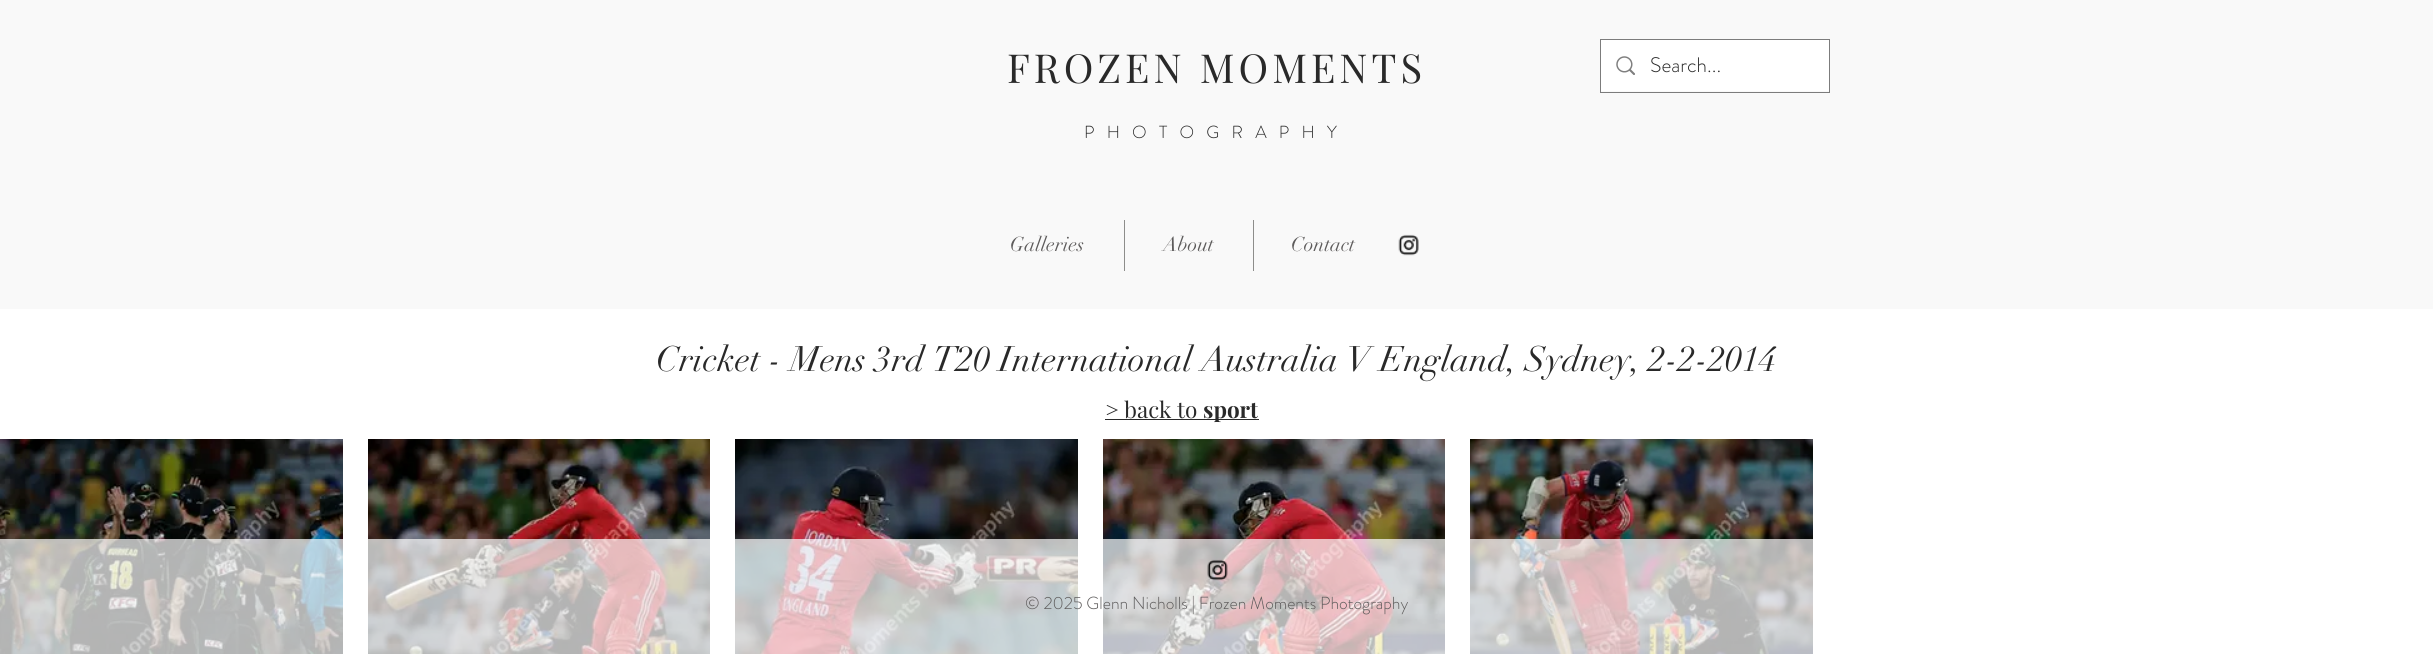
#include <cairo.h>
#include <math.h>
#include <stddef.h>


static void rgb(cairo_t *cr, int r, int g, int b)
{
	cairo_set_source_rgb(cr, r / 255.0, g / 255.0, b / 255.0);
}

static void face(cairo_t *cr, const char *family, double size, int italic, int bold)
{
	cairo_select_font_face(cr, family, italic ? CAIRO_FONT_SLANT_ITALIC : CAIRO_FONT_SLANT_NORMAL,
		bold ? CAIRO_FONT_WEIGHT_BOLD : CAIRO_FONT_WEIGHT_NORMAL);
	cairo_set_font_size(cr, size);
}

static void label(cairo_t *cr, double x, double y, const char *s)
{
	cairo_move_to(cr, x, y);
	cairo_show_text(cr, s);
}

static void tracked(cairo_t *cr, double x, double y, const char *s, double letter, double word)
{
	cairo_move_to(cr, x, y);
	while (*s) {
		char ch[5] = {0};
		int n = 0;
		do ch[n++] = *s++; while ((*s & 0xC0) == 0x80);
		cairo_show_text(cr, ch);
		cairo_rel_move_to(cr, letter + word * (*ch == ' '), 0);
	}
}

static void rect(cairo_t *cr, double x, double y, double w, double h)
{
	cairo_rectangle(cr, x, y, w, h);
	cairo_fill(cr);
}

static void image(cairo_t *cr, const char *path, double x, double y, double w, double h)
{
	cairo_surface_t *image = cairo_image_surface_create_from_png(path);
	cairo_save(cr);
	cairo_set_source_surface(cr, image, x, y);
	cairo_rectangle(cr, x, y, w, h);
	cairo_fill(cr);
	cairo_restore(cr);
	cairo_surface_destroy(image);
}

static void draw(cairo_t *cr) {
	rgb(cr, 255, 255, 255);
	cairo_paint(cr);
	rgb(cr, 249, 249, 249);
	rect(cr, 0, 0, 2433, 309);
	face(cr, "Playfair Display", 40, 0, 0);
	rgb(cr, 41, 41, 41);
	tracked(cr, 1007, 83, "FROZEN MOMENTS", 4, 0);
	cairo_rectangle(cr, 1600.5, 39.5, 229, 53);
	rgb(cr, 124, 124, 124);
	cairo_set_line_width(cr, 1);
	cairo_stroke(cr);
	rgb(cr, 255, 255, 255);
	rect(cr, 1601, 40, 228, 51);
	image(cr, "image0.png", 1616, 56, 19, 19);
	face(cr, "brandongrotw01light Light", 21, 0, 0);
	rgb(cr, 41, 41, 41);
	label(cr, 1650, 72, "Search...");
	face(cr, "brandongrotw01light Light", 17.5, 0, 0);
	tracked(cr, 1084, 138, "PHOTOGRAPHY", 12.25, 0);
	face(cr, "didot", 20, 0, 0);
	rgb(cr, 93, 91, 91);
	label(cr, 1010, 251, "Galleries");
	rgb(cr, 141, 141, 139);
	rect(cr, 1124, 220, 1, 51);
	rgb(cr, 93, 91, 91);
	label(cr, 1163, 251, "About");
	rgb(cr, 141, 141, 139);
	rect(cr, 1253, 220, 1, 51);
	rgb(cr, 93, 91, 91);
	label(cr, 1291, 251, "Contact");
	image(cr, "image1.png", 1398, 234, 21, 22);
	face(cr, "didot", 35, 0, 0);
	rgb(cr, 41, 41, 41);
	label(cr, 656, 371, "Cricket - Mens 3rd T20 International Australia V England, Sydney, 2-2-2014");
	face(cr, "Playfair Display", 22.5, 0, 0);
	label(cr, 1105, 418, "> back to");
	rect(cr, 1105, 419, 154, 1);
	face(cr, "Playfair Display", 22.5, 0, 1);
	label(cr, 1203, 418, "sport");
	image(cr, "image2.png", 0, 439, 343, 215);
	image(cr, "image3.png", 368, 439, 342, 215);
	image(cr, "image4.png", 735, 439, 343, 215);
	image(cr, "image5.png", 1103, 439, 342, 215);
	image(cr, "image6.png", 1470, 439, 343, 215);
	cairo_set_source_rgba(cr, 1, 1, 1, 0.7);
	rect(cr, 0, 539, 1813, 115);
	image(cr, "image7.png", 1207, 559, 21, 22);
	face(cr, "brandongrotw01light Light", 17.5, 0, 0);
	rgb(cr, 93, 91, 91);
	label(cr, 1025, 609, "© 2025 Glenn Nicholls | Frozen Moments Photography");
}

int main(void) {
	cairo_surface_t *surface = cairo_image_surface_create(CAIRO_FORMAT_RGB24, 2433, 654);
	cairo_t *cr = cairo_create(surface);
	cairo_font_options_t *options = cairo_font_options_create();
	cairo_font_options_set_hint_metrics(options, CAIRO_HINT_METRICS_OFF);
	cairo_font_options_set_hint_style(options, CAIRO_HINT_STYLE_NONE);
	cairo_set_font_options(cr, options);
	cairo_set_miter_limit(cr, 4);
	draw(cr);
	cairo_surface_write_to_png(surface, "render.png");
	cairo_font_options_destroy(options);
	cairo_destroy(cr);
	cairo_surface_destroy(surface);
	return 0;
}
